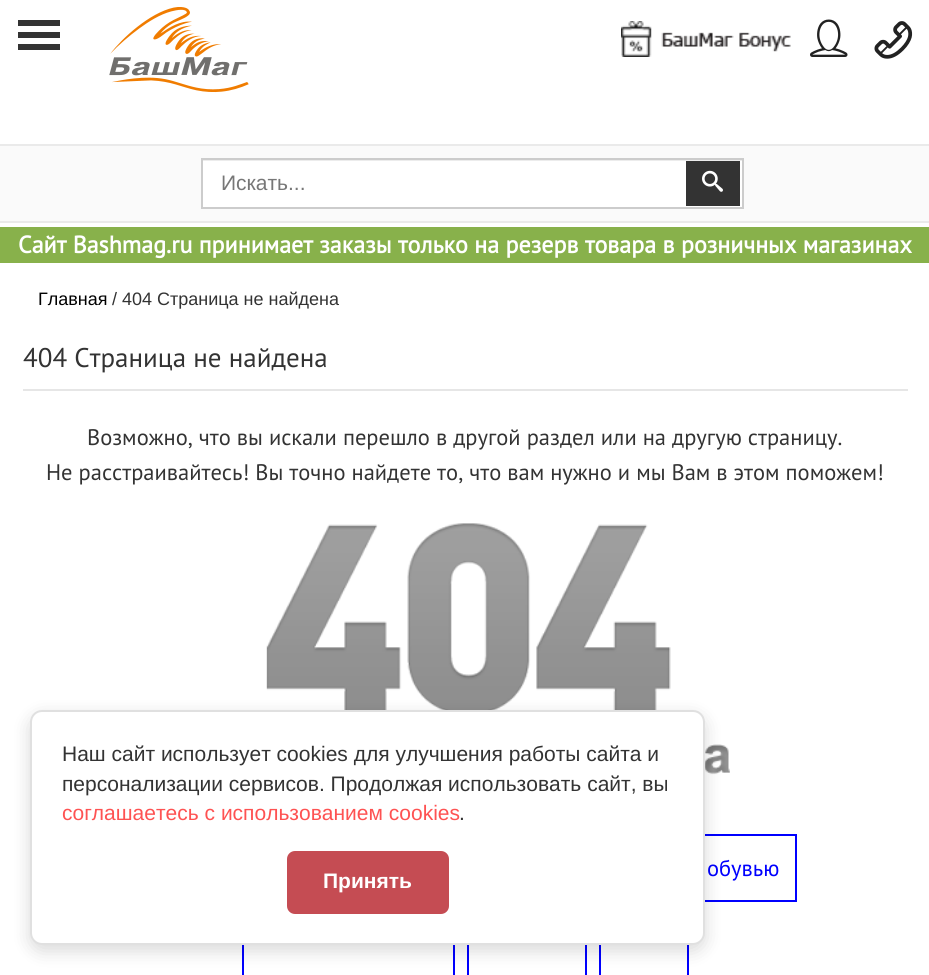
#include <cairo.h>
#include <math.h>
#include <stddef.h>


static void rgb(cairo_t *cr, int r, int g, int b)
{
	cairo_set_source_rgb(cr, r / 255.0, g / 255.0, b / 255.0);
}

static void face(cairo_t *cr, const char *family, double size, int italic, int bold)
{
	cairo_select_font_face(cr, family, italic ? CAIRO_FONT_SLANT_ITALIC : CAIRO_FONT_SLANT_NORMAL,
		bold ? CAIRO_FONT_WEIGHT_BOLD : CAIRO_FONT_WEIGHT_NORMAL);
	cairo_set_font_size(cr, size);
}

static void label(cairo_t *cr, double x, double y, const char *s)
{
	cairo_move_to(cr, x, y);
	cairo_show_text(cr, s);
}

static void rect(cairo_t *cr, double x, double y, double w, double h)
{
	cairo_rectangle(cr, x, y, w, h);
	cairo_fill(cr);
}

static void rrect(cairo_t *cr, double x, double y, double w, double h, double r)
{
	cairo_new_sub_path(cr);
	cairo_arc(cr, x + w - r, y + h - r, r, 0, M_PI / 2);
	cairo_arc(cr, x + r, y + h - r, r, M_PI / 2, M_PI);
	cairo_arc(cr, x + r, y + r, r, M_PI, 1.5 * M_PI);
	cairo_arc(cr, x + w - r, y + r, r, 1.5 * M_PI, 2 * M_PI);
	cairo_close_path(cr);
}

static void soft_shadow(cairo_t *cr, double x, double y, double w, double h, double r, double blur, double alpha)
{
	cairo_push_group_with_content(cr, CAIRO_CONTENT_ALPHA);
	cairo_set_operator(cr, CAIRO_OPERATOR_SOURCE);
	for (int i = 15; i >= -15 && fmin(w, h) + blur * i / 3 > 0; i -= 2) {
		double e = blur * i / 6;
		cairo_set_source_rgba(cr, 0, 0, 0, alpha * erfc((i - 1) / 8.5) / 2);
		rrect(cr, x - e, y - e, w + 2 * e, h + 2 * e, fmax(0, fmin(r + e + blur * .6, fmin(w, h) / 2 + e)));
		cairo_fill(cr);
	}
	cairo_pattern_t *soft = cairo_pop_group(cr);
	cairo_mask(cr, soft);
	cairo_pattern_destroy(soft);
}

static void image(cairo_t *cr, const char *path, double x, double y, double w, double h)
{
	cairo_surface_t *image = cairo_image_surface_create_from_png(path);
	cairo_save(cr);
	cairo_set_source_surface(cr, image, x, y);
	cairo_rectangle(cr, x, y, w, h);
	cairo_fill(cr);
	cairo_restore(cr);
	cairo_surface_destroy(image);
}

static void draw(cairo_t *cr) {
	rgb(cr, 255, 255, 255);
	cairo_paint(cr);
	rgb(cr, 51, 51, 51);
	cairo_new_path(cr);
	cairo_move_to(cr, 18, 20);
	cairo_line_to(cr, 60, 20);
	cairo_line_to(cr, 60, 26);
	cairo_line_to(cr, 18, 26);
	cairo_close_path(cr);
	cairo_move_to(cr, 18, 32);
	cairo_line_to(cr, 60, 32);
	cairo_line_to(cr, 60, 38);
	cairo_line_to(cr, 18, 38);
	cairo_close_path(cr);
	cairo_move_to(cr, 18, 44);
	cairo_line_to(cr, 60, 44);
	cairo_line_to(cr, 60, 50);
	cairo_line_to(cr, 18, 50);
	cairo_close_path(cr);
	cairo_fill(cr);
	image(cr, "image0.png", 109, 7, 140, 86);
	image(cr, "image1.png", 621, 21, 170, 36);
	image(cr, "image2.png", 810, 19, 38, 38);
	image(cr, "image3.png", 874, 21, 39, 38);
	rgb(cr, 250, 250, 250);
	rect(cr, 0, 146, 929, 75);
	rgb(cr, 234, 234, 234);
	rect(cr, 0, 144, 929, 2);
	rect(cr, 0, 221, 929, 2);
	rgb(cr, 255, 255, 255);
	rect(cr, 203, 161, 539, 46);
	rgb(cr, 236, 236, 236);
	rect(cr, 203, 160, 540, 1);
	cairo_rectangle(cr, 202, 159, 541, 49);
	rgb(cr, 204, 204, 204);
	cairo_stroke(cr);
	face(cr, "Liberation Sans", 21, 0, 0);
	rgb(cr, 119, 119, 119);
	label(cr, 221, 190, "Искать...");
	rgb(cr, 51, 51, 51);
	rect(cr, 686, 161, 54, 45);
	image(cr, "image4.png", 702, 170, 21, 22);
	rgb(cr, 136, 177, 75);
	rect(cr, 0, 227, 929, 36);
	face(cr, "PT Sans", 24, 0, 1);
	rgb(cr, 255, 255, 255);
	label(cr, 18, 253, "Сайт Bashmag.ru принимает заказы только на резерв товара в розничных магазинах");
	face(cr, "Liberation Sans", 18, 0, 0);
	rgb(cr, 0, 0, 0);
	label(cr, 38, 305, "Главная");
	rgb(cr, 51, 51, 51);
	label(cr, 112, 305, "/ 404 Страница не найдена");
	rgb(cr, 230, 230, 230);
	rect(cr, 23, 389, 885, 2);
	face(cr, "PT Sans", 27, 0, 0);
	rgb(cr, 51, 51, 51);
	label(cr, 23, 367, "404 Страница не найдена");
	face(cr, "PT Sans", 22.5, 0, 0);
	label(cr, 87, 445, "Возможно, что вы искали перешло в другой раздел или на другую страницу.");
	label(cr, 46, 480, "Не расстраивайтесь! Вы точно найдете то, что вам нужно и мы Вам в этом поможем!");
	image(cr, "image5.png", 266, 523, 464, 252);
	cairo_rectangle(cr, 610, 835, 186, 66);
	rgb(cr, 0, 0, 255);
	cairo_stroke(cr);
	label(cr, 707, 876, "обувью");
	cairo_rectangle(cr, 243, 909, 211, 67);
	cairo_stroke(cr);
	cairo_rectangle(cr, 468, 909, 118, 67);
	cairo_stroke(cr);
	cairo_rectangle(cr, 600, 909, 88, 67);
	cairo_stroke(cr);
	rgb(cr, 0, 0, 0);
	soft_shadow(cr, 30, 716, 675, 235, 12, 9, 0.15);
	rgb(cr, 255, 255, 255);
	rrect(cr, 31, 711, 673, 233, 11);
	cairo_fill_preserve(cr);
	rgb(cr, 224, 224, 224);
	cairo_stroke(cr);
	face(cr, "Liberation Sans", 21, 0, 0);
	rgb(cr, 51, 51, 51);
	label(cr, 62, 761, "Наш сайт использует cookies для улучшения работы сайта и");
	label(cr, 62, 791, "персонализации сервисов. Продолжая использовать сайт, вы");
	rgb(cr, 254, 82, 82);
	label(cr, 62, 820, "соглашаетесь с использованием cookies");
	rgb(cr, 51, 51, 51);
	label(cr, 459, 820, ".");
	rgb(cr, 197, 76, 83);
	rrect(cr, 287, 851, 162, 63, 8);
	cairo_fill(cr);
	face(cr, "Liberation Sans", 21, 0, 1);
	rgb(cr, 255, 255, 255);
	label(cr, 323, 888, "Принять");
}

int main(void) {
	cairo_surface_t *surface = cairo_image_surface_create(CAIRO_FORMAT_RGB24, 929, 975);
	cairo_t *cr = cairo_create(surface);
	cairo_font_options_t *options = cairo_font_options_create();
	cairo_font_options_set_hint_metrics(options, CAIRO_HINT_METRICS_OFF);
	cairo_font_options_set_hint_style(options, CAIRO_HINT_STYLE_NONE);
	cairo_set_font_options(cr, options);
	cairo_set_miter_limit(cr, 4);
	draw(cr);
	cairo_surface_write_to_png(surface, "render.png");
	cairo_font_options_destroy(options);
	cairo_destroy(cr);
	cairo_surface_destroy(surface);
	return 0;
}
